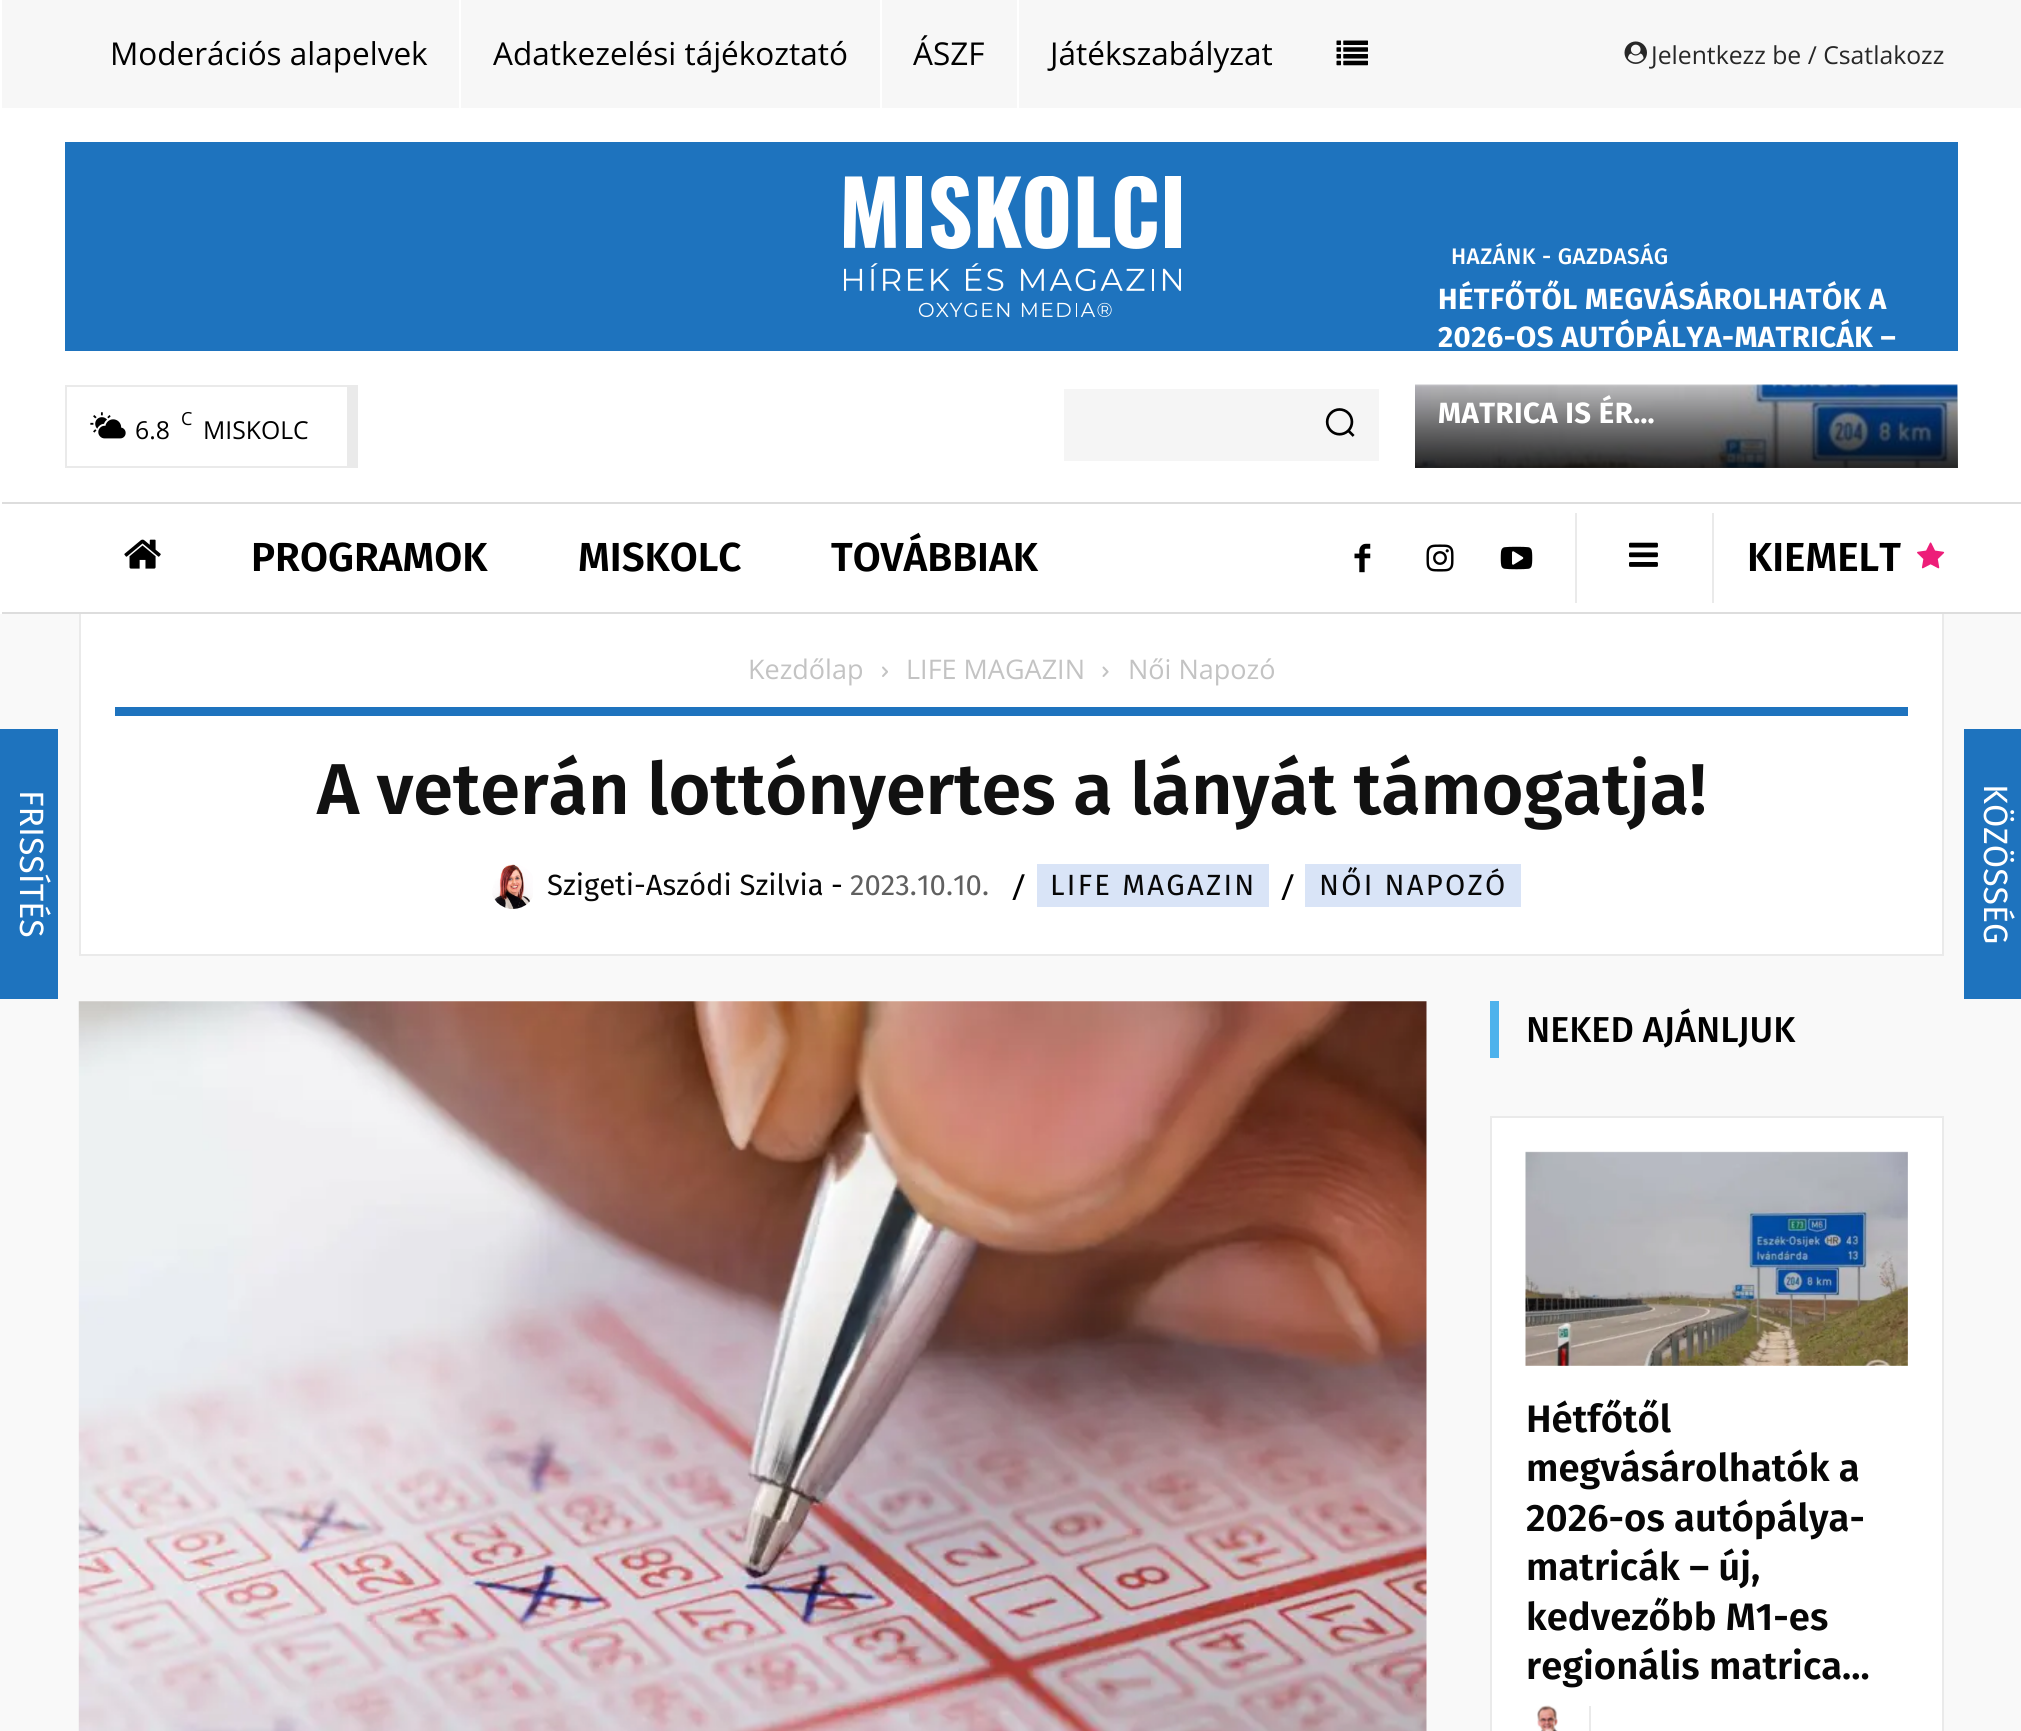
#include <cairo.h>
#include <math.h>
#include <stddef.h>


static void rgb(cairo_t *cr, int r, int g, int b)
{
	cairo_set_source_rgb(cr, r / 255.0, g / 255.0, b / 255.0);
}

static void face(cairo_t *cr, const char *family, double size, int italic, int bold)
{
	cairo_select_font_face(cr, family, italic ? CAIRO_FONT_SLANT_ITALIC : CAIRO_FONT_SLANT_NORMAL,
		bold ? CAIRO_FONT_WEIGHT_BOLD : CAIRO_FONT_WEIGHT_NORMAL);
	cairo_set_font_size(cr, size);
}

static void label(cairo_t *cr, double x, double y, const char *s)
{
	cairo_move_to(cr, x, y);
	cairo_show_text(cr, s);
}

static void tracked(cairo_t *cr, double x, double y, const char *s, double letter, double word)
{
	cairo_move_to(cr, x, y);
	while (*s) {
		char ch[5] = {0};
		int n = 0;
		do ch[n++] = *s++; while ((*s & 0xC0) == 0x80);
		cairo_show_text(cr, ch);
		cairo_rel_move_to(cr, letter + word * (*ch == ' '), 0);
	}
}

static void rect(cairo_t *cr, double x, double y, double w, double h)
{
	cairo_rectangle(cr, x, y, w, h);
	cairo_fill(cr);
}

static void image(cairo_t *cr, const char *path, double x, double y, double w, double h)
{
	cairo_surface_t *image = cairo_image_surface_create_from_png(path);
	cairo_save(cr);
	cairo_set_source_surface(cr, image, x, y);
	cairo_rectangle(cr, x, y, w, h);
	cairo_fill(cr);
	cairo_restore(cr);
	cairo_surface_destroy(image);
}

static void draw(cairo_t *cr) {
	cairo_pattern_t *gradient;
	rgb(cr, 249, 249, 249);
	cairo_paint(cr);
	rgb(cr, 30, 115, 190);
	rect(cr, 0, 729, 58, 270);
	face(cr, "Fira Sans", 33.75, 0, 0);
	rgb(cr, 255, 255, 255);
	cairo_save(cr);
	cairo_translate(cr, 20, 790);
	cairo_rotate(cr, 90 * M_PI / 180);
	label(cr, 0, 0, "FRISSÍTÉS");
	cairo_restore(cr);
	rect(cr, 0, 0, 2021, 614);
	rgb(cr, 247, 247, 247);
	rect(cr, 2, 0, 2019, 108);
	face(cr, "Open Sans", 31.5, 0, 0);
	rgb(cr, 0, 0, 0);
	label(cr, 110, 65, "Moderációs alapelvek");
	rgb(cr, 255, 255, 255);
	rect(cr, 459, 0, 2, 108);
	rgb(cr, 0, 0, 0);
	label(cr, 493, 65, "Adatkezelési tájékoztató");
	rgb(cr, 255, 255, 255);
	rect(cr, 880, 0, 2, 108);
	rgb(cr, 0, 0, 0);
	label(cr, 913, 65, "ÁSZF");
	rgb(cr, 255, 255, 255);
	rect(cr, 1017, 0, 2, 108);
	rgb(cr, 0, 0, 0);
	label(cr, 1050, 65, "Játékszabályzat");
	image(cr, "image0.png", 1336, 40, 32, 26);
	image(cr, "image1.png", 1624, 41, 23, 23);
	face(cr, "Open Sans", 24.75, 0, 0);
	rgb(cr, 39, 39, 39);
	label(cr, 1651, 64, "Jelentkezz be / Csatlakozz");
	rgb(cr, 30, 115, 190);
	rect(cr, 65, 142, 1893, 209);
	image(cr, "image2.png", 844, 176, 337, 141);
	rgb(cr, 234, 234, 234);
	rect(cr, 65, 385, 282, 2);
	rect(cr, 347, 385, 11, 81);
	rect(cr, 65, 466, 293, 2);
	rect(cr, 65, 385, 2, 83);
	image(cr, "image3.png", 90, 412, 36, 27);
	face(cr, "Open Sans", 18, 0, 0);
	rgb(cr, 0, 0, 0);
	label(cr, 181, 425, "C");
	face(cr, "Open Sans", 24.75, 0, 0);
	label(cr, 135, 439, "6.8");
	label(cr, 203, 439, "MISKOLC");
	rgb(cr, 245, 245, 245);
	rect(cr, 1064, 389, 315, 72);
	image(cr, "image4.png", 1325, 408, 30, 29);
	face(cr, "Fira Sans Medium", 22.5, 0, 0);
	rgb(cr, 255, 255, 255);
	tracked(cr, 1451, 264, "HAZÁNK - GAZDASÁG", 0.45, 0);
	face(cr, "Fira Sans", 29.25, 0, 1);
	tracked(cr, 1438, 309, "HÉTFŐTŐL MEGVÁSÁROLHATÓK A", 0.45, 0);
	tracked(cr, 1438, 347, "2026-OS AUTÓPÁLYA-MATRICÁK –", 0.45, 0);
	image(cr, "image5.png", 1415, 384, 543, 84);
	gradient = cairo_pattern_create_linear(1686, 468, 1686, 385);
	cairo_pattern_add_color_stop_rgba(gradient, 0, 0, 0, 0, 0.8);
	cairo_pattern_add_color_stop_rgba(gradient, 1, 0, 0, 0, 0);
	cairo_set_source(cr, gradient);
	cairo_pattern_destroy(gradient);
	rect(cr, 1415, 387, 543, 81);
	rgb(cr, 255, 255, 255);
	tracked(cr, 1438, 423, "MATRICA IS ÉR…", 0.45, 0);
	rgb(cr, 221, 221, 221);
	rect(cr, 2, 502, 2019, 2);
	rect(cr, 2, 612, 2019, 2);
	image(cr, "image6.png", 124, 539, 37, 30);
	face(cr, "Fira Sans SemiBold", 40.5, 0, 0);
	rgb(cr, 0, 0, 0);
	label(cr, 251, 571, "PROGRAMOK");
	label(cr, 578, 571, "MISKOLC");
	label(cr, 831, 571, "TOVÁBBIAK");
	rgb(cr, 234, 234, 234);
	rect(cr, 1575, 513, 2, 90);
	image(cr, "image7.png", 1354, 543, 17, 30);
	image(cr, "image8.png", 1426, 544, 28, 28);
	image(cr, "image9.png", 1500, 546, 33, 24);
	rect(cr, 1712, 513, 2, 90);
	image(cr, "image10.png", 1629, 542, 29, 25);
	rgb(cr, 0, 0, 0);
	label(cr, 1747, 571, "KIEMELT");
	image(cr, "image11.png", 1917, 542, 28, 27);
	rgb(cr, 255, 255, 255);
	rect(cr, 81, 614, 1861, 340);
	rgb(cr, 234, 234, 234);
	rect(cr, 1942, 614, 2, 342);
	rect(cr, 79, 954, 1865, 2);
	rect(cr, 79, 614, 2, 342);
	rgb(cr, 30, 115, 190);
	rect(cr, 115, 707, 1793, 9);
	face(cr, "Open Sans", 27, 0, 0);
	rgb(cr, 195, 195, 195);
	label(cr, 748, 679, "Kezdőlap");
	image(cr, "image12.png", 882, 666, 6, 11);
	label(cr, 906, 679, "LIFE MAGAZIN");
	image(cr, "image13.png", 1102, 666, 7, 11);
	label(cr, 1128, 679, "Női Napozó");
	face(cr, "Fira Sans SemiBold", 72, 0, 0);
	rgb(cr, 17, 17, 17);
	label(cr, 317, 814, "A veterán lottónyertes a lányát támogatja!");
	image(cr, "image14.png", 492, 864, 41, 45);
	face(cr, "Fira Sans", 29.25, 0, 0);
	rgb(cr, 7, 7, 7);
	label(cr, 547, 895, "Szigeti-Aszódi Szilvia");
	rgb(cr, 0, 0, 0);
	label(cr, 831, 895, "-");
	rgb(cr, 96, 96, 96);
	label(cr, 850, 895, "2023.10.10.");
	face(cr, "Open Sans", 36, 0, 0);
	rgb(cr, 0, 0, 0);
	label(cr, 1012, 900, "/");
	rgb(cr, 217, 228, 247);
	rect(cr, 1037, 864, 232, 43);
	face(cr, "Fira Sans", 29.25, 0, 0);
	rgb(cr, 7, 7, 7);
	tracked(cr, 1050, 895, "LIFE MAGAZIN", 2.25, 0);
	face(cr, "Open Sans", 36, 0, 0);
	rgb(cr, 0, 0, 0);
	label(cr, 1281, 900, "/");
	rgb(cr, 217, 228, 247);
	rect(cr, 1305, 864, 216, 43);
	face(cr, "Fira Sans", 29.25, 0, 0);
	rgb(cr, 7, 7, 7);
	tracked(cr, 1319, 895, "NŐI NAPOZÓ", 2.25, 0);
	image(cr, "image15.png", 78, 1001, 1349, 730);
	rgb(cr, 77, 178, 236);
	rect(cr, 1490, 1001, 9, 57);
	face(cr, "Fira Sans Medium", 36, 0, 0);
	rgb(cr, 0, 0, 0);
	label(cr, 1526, 1042, "NEKED AJÁNLJUK");
	rgb(cr, 255, 255, 255);
	cairo_rectangle(cr, 1491, 1117, 452, 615);
	cairo_fill_preserve(cr);
	rgb(cr, 234, 234, 234);
	cairo_stroke(cr);
	image(cr, "image16.png", 1525, 1151, 383, 215);
	face(cr, "Fira Sans SemiBold", 38.25, 0, 0);
	rgb(cr, 7, 7, 7);
	label(cr, 1526, 1432, "Hétfőtől");
	label(cr, 1526, 1481, "megvásárolhatók a");
	label(cr, 1526, 1531, "2026-os autópálya-");
	label(cr, 1526, 1580, "matricák – új,");
	label(cr, 1526, 1630, "kedvezőbb M1-es");
	label(cr, 1526, 1679, "regionális matrica...");
	image(cr, "image17.png", 1537, 1705, 21, 26);
	rgb(cr, 234, 234, 234);
	rect(cr, 1589, 1706, 2, 25);
	rgb(cr, 30, 115, 190);
	rect(cr, 1964, 729, 57, 270);
	face(cr, "Fira Sans", 33.75, 0, 0);
	rgb(cr, 255, 255, 255);
	cairo_save(cr);
	cairo_translate(cr, 1984, 784);
	cairo_rotate(cr, 90 * M_PI / 180);
	label(cr, 0, 0, "KÖZÖSSÉG");
	cairo_restore(cr);
}

int main(void) {
	cairo_surface_t *surface = cairo_image_surface_create(CAIRO_FORMAT_RGB24, 2021, 1731);
	cairo_t *cr = cairo_create(surface);
	cairo_font_options_t *options = cairo_font_options_create();
	cairo_font_options_set_hint_metrics(options, CAIRO_HINT_METRICS_OFF);
	cairo_font_options_set_hint_style(options, CAIRO_HINT_STYLE_NONE);
	cairo_set_font_options(cr, options);
	cairo_set_miter_limit(cr, 4);
	draw(cr);
	cairo_surface_write_to_png(surface, "render.png");
	cairo_font_options_destroy(options);
	cairo_destroy(cr);
	cairo_surface_destroy(surface);
	return 0;
}
